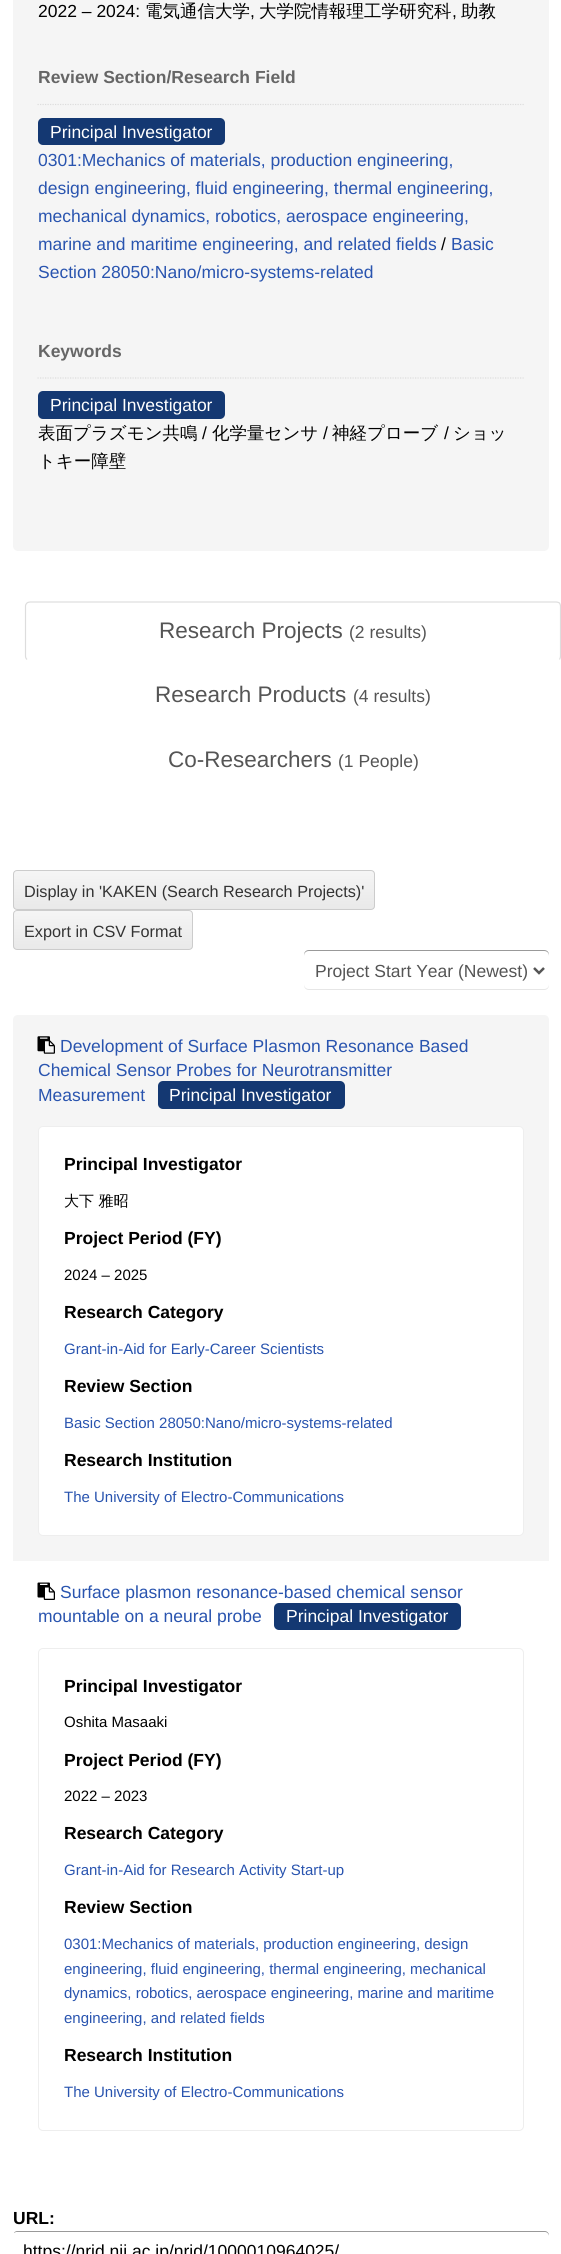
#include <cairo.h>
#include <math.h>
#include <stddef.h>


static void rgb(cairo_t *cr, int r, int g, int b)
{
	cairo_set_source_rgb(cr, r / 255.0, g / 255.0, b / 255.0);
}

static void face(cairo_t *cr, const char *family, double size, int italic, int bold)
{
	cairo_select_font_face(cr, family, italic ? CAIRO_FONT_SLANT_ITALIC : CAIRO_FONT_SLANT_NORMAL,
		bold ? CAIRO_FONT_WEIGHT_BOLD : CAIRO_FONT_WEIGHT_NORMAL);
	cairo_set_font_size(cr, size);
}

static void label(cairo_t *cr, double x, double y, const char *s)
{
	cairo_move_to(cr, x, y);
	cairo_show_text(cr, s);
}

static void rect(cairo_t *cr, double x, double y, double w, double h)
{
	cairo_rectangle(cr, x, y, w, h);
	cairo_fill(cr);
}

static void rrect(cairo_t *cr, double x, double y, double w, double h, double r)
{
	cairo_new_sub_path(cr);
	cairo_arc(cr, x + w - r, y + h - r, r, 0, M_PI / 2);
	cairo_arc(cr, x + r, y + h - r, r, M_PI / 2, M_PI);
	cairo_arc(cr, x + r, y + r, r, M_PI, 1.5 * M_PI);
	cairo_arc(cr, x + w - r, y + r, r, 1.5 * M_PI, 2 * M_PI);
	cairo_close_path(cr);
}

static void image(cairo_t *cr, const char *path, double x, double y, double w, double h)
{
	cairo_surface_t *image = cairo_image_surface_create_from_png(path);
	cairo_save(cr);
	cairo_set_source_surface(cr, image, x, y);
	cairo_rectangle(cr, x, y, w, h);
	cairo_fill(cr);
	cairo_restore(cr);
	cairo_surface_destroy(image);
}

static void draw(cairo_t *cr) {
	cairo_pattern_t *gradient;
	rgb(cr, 255, 255, 255);
	cairo_paint(cr);
	rgb(cr, 245, 245, 245);
	rrect(cr, 13, -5, 536, 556, 5);
	cairo_fill(cr);
	face(cr, "Liberation Sans", 17.5, 0, 0);
	rgb(cr, 0, 0, 0);
	label(cr, 38, 17, "2022 – 2024:");
	face(cr, "WenQuanYi Zen Hei Medium", 17.5, 0, 0);
	label(cr, 145, 17, "電気通信大学");
	face(cr, "Liberation Sans", 17.5, 0, 0);
	label(cr, 250, 17, ",");
	face(cr, "WenQuanYi Zen Hei Medium", 17.5, 0, 0);
	label(cr, 259, 17, "大学院情報理工学研究科");
	face(cr, "Liberation Sans", 17.5, 0, 0);
	label(cr, 452, 17, ",");
	face(cr, "WenQuanYi Zen Hei Medium", 17.5, 0, 0);
	label(cr, 461, 17, "助教");
	cairo_new_path(cr);
	cairo_move_to(cr, 37.5, 104.5);
	cairo_line_to(cr, 524, 104.5);
	rgb(cr, 221, 221, 221);
	cairo_set_line_width(cr, 1.2);
	cairo_set_dash(cr, (double[]){1.25, 1.25}, 2, 0);
	cairo_stroke(cr);
	face(cr, "Liberation Sans", 17.5, 0, 1);
	rgb(cr, 102, 102, 102);
	label(cr, 38, 83, "Review Section/Research Field");
	rgb(cr, 20, 56, 114);
	rrect(cr, 38, 118, 187, 27, 5);
	cairo_fill(cr);
	face(cr, "Liberation Sans", 17.5, 0, 0);
	rgb(cr, 255, 255, 255);
	label(cr, 50, 138, "Principal Investigator");
	rgb(cr, 41, 84, 175);
	label(cr, 38, 166, "0301:Mechanics of materials, production engineering,");
	label(cr, 38, 194, "design engineering, fluid engineering, thermal engineering,");
	label(cr, 38, 222, "mechanical dynamics, robotics, aerospace engineering,");
	label(cr, 38, 250, "marine and maritime engineering, and related fields");
	rgb(cr, 0, 0, 0);
	label(cr, 441, 250, "/");
	rgb(cr, 41, 84, 175);
	label(cr, 451, 250, "Basic");
	label(cr, 38, 278, "Section 28050:Nano/micro-systems-related");
	cairo_new_path(cr);
	cairo_move_to(cr, 37.5, 378);
	cairo_line_to(cr, 524, 378);
	rgb(cr, 221, 221, 221);
	cairo_stroke(cr);
	face(cr, "Liberation Sans", 17.5, 0, 1);
	rgb(cr, 102, 102, 102);
	label(cr, 38, 357, "Keywords");
	rgb(cr, 20, 56, 114);
	rrect(cr, 38, 391, 187, 28, 5);
	cairo_fill(cr);
	face(cr, "Liberation Sans", 17.5, 0, 0);
	rgb(cr, 255, 255, 255);
	label(cr, 50, 411, "Principal Investigator");
	face(cr, "WenQuanYi Zen Hei Medium", 17.5, 0, 0);
	rgb(cr, 0, 0, 0);
	label(cr, 38, 439, "表面プラズモン共鳴");
	face(cr, "Liberation Sans", 17.5, 0, 0);
	label(cr, 202, 439, "/");
	face(cr, "WenQuanYi Zen Hei Medium", 17.5, 0, 0);
	label(cr, 212, 439, "化学量センサ");
	face(cr, "Liberation Sans", 17.5, 0, 0);
	label(cr, 323, 439, "/");
	face(cr, "WenQuanYi Zen Hei Medium", 17.5, 0, 0);
	label(cr, 332, 439, "神経プローブ");
	face(cr, "Liberation Sans", 17.5, 0, 0);
	label(cr, 444, 439, "/");
	face(cr, "WenQuanYi Zen Hei Medium", 17.5, 0, 0);
	label(cr, 453, 439, "ショッ");
	label(cr, 38, 467, "トキー障壁");
	cairo_new_path(cr);
	cairo_move_to(cr, 27, 659.5);
	cairo_curve_to(cr, 26, 658.5, 25.5, 657.5, 25.5, 656);
	cairo_line_to(cr, 25.5, 606);
	cairo_curve_to(cr, 25.5, 605, 26, 604, 27, 603);
	cairo_curve_to(cr, 27.5, 602.5, 29, 602, 30, 602);
	cairo_line_to(cr, 556, 602);
	cairo_curve_to(cr, 557.5, 602, 558.5, 602.5, 559.5, 603);
	cairo_curve_to(cr, 560, 604, 560.5, 605, 560.5, 606);
	cairo_line_to(cr, 560.5, 656);
	cairo_curve_to(cr, 560.5, 657.5, 560, 658.5, 559.5, 659.5);
	rgb(cr, 221, 221, 221);
	cairo_set_dash(cr, NULL, 0, 0);
	cairo_stroke(cr);
	face(cr, "Liberation Sans", 22.5, 0, 0);
	rgb(cr, 85, 85, 85);
	label(cr, 159, 638, "Research Projects");
	face(cr, "Liberation Sans", 17.5, 0, 0);
	label(cr, 349, 638, "(2 results)");
	face(cr, "Liberation Sans", 22.5, 0, 0);
	label(cr, 155, 702, "Research Products");
	face(cr, "Liberation Sans", 17.5, 0, 0);
	label(cr, 353, 702, "(4 results)");
	face(cr, "Liberation Sans", 22.5, 0, 0);
	label(cr, 168, 767, "Co-Researchers");
	face(cr, "Liberation Sans", 17.5, 0, 0);
	label(cr, 338, 767, "(1 People)");
	cairo_save(cr);
	rrect(cr, 13, 870, 362, 40, 4);
	cairo_clip(cr);
	gradient = cairo_pattern_create_linear(194, 871, 194, 909);
	cairo_pattern_add_color_stop_rgba(gradient, 0, 0.961, 0.961, 0.961, 1);
	cairo_pattern_add_color_stop_rgba(gradient, 1, 0.914, 0.914, 0.914, 1);
	cairo_set_source(cr, gradient);
	cairo_pattern_destroy(gradient);
	rect(cr, 13, 871, 362, 38);
	cairo_restore(cr);
	rrect(cr, 13.5, 870.5, 361, 39, 3.5);
	rgb(cr, 204, 204, 204);
	cairo_set_line_width(cr, 1);
	cairo_stroke(cr);
	face(cr, "Liberation Sans", 16.25, 0, 0);
	rgb(cr, 51, 51, 51);
	label(cr, 24, 897, "Display in 'KAKEN (Search Research Projects)'");
	cairo_save(cr);
	rrect(cr, 13, 910, 180, 40, 4);
	cairo_clip(cr);
	gradient = cairo_pattern_create_linear(103, 911, 103, 949);
	cairo_pattern_add_color_stop_rgba(gradient, 0, 0.961, 0.961, 0.961, 1);
	cairo_pattern_add_color_stop_rgba(gradient, 1, 0.914, 0.914, 0.914, 1);
	cairo_set_source(cr, gradient);
	cairo_pattern_destroy(gradient);
	rect(cr, 13, 911, 180, 38);
	cairo_restore(cr);
	rrect(cr, 13.5, 910.5, 179, 39, 3.5);
	rgb(cr, 204, 204, 204);
	cairo_stroke(cr);
	rgb(cr, 51, 51, 51);
	label(cr, 24, 937, "Export in CSV Format");
	rgb(cr, 230, 230, 230);
	cairo_new_path(cr);
	cairo_move_to(cr, 304, 984);
	cairo_line_to(cr, 304, 985);
	cairo_curve_to(cr, 304, 988, 306, 990, 309, 990);
	cairo_line_to(cr, 544, 990);
	cairo_curve_to(cr, 547, 990, 549, 988, 549, 985);
	cairo_line_to(cr, 549, 984);
	cairo_curve_to(cr, 549, 987, 547, 989, 544, 989);
	cairo_line_to(cr, 309, 989);
	cairo_curve_to(cr, 306, 989, 304, 987, 304, 984);
	cairo_close_path(cr);
	cairo_fill(cr);
	rgb(cr, 153, 153, 153);
	cairo_new_path(cr);
	cairo_move_to(cr, 309, 951);
	cairo_line_to(cr, 544, 951);
	cairo_curve_to(cr, 547, 951, 549, 953, 549, 956);
	cairo_line_to(cr, 549, 955);
	cairo_curve_to(cr, 549, 952, 547, 950, 544, 950);
	cairo_line_to(cr, 309, 950);
	cairo_curve_to(cr, 306, 950, 304, 952, 304, 955);
	cairo_line_to(cr, 304, 956);
	cairo_curve_to(cr, 304, 953, 306, 951, 309, 951);
	cairo_close_path(cr);
	cairo_fill(cr);
	cairo_new_path(cr);
	cairo_move_to(cr, 534, 968);
	cairo_line_to(cr, 539, 973);
	cairo_line_to(cr, 544, 968);
	rgb(cr, 85, 85, 85);
	cairo_set_line_width(cr, 2.5);
	cairo_stroke(cr);
	face(cr, "Liberation Sans", 17.5, 0, 0);
	label(cr, 315, 977, "Project Start Year (Newest)");
	rgb(cr, 245, 245, 245);
	cairo_new_path(cr);
	cairo_move_to(cr, 18, 1015);
	cairo_line_to(cr, 544, 1015);
	cairo_curve_to(cr, 547, 1015, 549, 1017, 549, 1020);
	cairo_line_to(cr, 549, 1561);
	cairo_line_to(cr, 13, 1561);
	cairo_line_to(cr, 13, 1020);
	cairo_curve_to(cr, 13, 1017, 15, 1015, 18, 1015);
	cairo_close_path(cr);
	cairo_fill(cr);
	image(cr, "image0.png", 37, 1036, 18, 18);
	rgb(cr, 41, 84, 175);
	label(cr, 60, 1052, "Development of Surface Plasmon Resonance Based");
	label(cr, 38, 1076, "Chemical Sensor Probes for Neurotransmitter");
	label(cr, 38, 1101, "Measurement");
	rgb(cr, 20, 56, 114);
	rrect(cr, 158, 1081, 187, 28, 5);
	cairo_fill(cr);
	rgb(cr, 255, 255, 255);
	label(cr, 169, 1101, "Principal Investigator");
	rrect(cr, 38.5, 1126.5, 485, 409, 4.5);
	cairo_fill_preserve(cr);
	rgb(cr, 238, 238, 238);
	cairo_set_line_width(cr, 1);
	cairo_stroke(cr);
	face(cr, "Liberation Sans", 17.5, 0, 1);
	rgb(cr, 0, 0, 0);
	label(cr, 64, 1170, "Principal Investigator");
	face(cr, "WenQuanYi Zen Hei Medium", 15, 0, 0);
	label(cr, 64, 1206, "大下 雅昭");
	face(cr, "Liberation Sans", 17.5, 0, 1);
	label(cr, 64, 1244, "Project Period (FY)");
	face(cr, "Liberation Sans", 15, 0, 0);
	label(cr, 64, 1280, "2024 – 2025");
	face(cr, "Liberation Sans", 17.5, 0, 1);
	label(cr, 64, 1318, "Research Category");
	face(cr, "Liberation Sans", 15, 0, 0);
	rgb(cr, 41, 84, 175);
	label(cr, 64, 1354, "Grant-in-Aid for Early-Career Scientists");
	face(cr, "Liberation Sans", 17.5, 0, 1);
	rgb(cr, 0, 0, 0);
	label(cr, 64, 1392, "Review Section");
	face(cr, "Liberation Sans", 15, 0, 0);
	rgb(cr, 41, 84, 175);
	label(cr, 64, 1428, "Basic Section 28050:Nano/micro-systems-related");
	face(cr, "Liberation Sans", 17.5, 0, 1);
	rgb(cr, 0, 0, 0);
	label(cr, 64, 1466, "Research Institution");
	face(cr, "Liberation Sans", 15, 0, 0);
	rgb(cr, 41, 84, 175);
	label(cr, 64, 1502, "The University of Electro-Communications");
	image(cr, "image1.png", 37, 1582, 18, 18);
	face(cr, "Liberation Sans", 17.5, 0, 0);
	label(cr, 60, 1598, "Surface plasmon resonance-based chemical sensor");
	label(cr, 38, 1622, "mountable on a neural probe");
	rgb(cr, 20, 56, 114);
	rrect(cr, 274, 1603, 187, 27, 5);
	cairo_fill(cr);
	rgb(cr, 255, 255, 255);
	label(cr, 286, 1622, "Principal Investigator");
	rrect(cr, 38.5, 1648.5, 485, 482, 4.5);
	rgb(cr, 238, 238, 238);
	cairo_stroke(cr);
	face(cr, "Liberation Sans", 17.5, 0, 1);
	rgb(cr, 0, 0, 0);
	label(cr, 64, 1692, "Principal Investigator");
	face(cr, "Liberation Sans", 15, 0, 0);
	label(cr, 64, 1727, "Oshita Masaaki");
	face(cr, "Liberation Sans", 17.5, 0, 1);
	label(cr, 64, 1766, "Project Period (FY)");
	face(cr, "Liberation Sans", 15, 0, 0);
	label(cr, 64, 1801, "2022 – 2023");
	face(cr, "Liberation Sans", 17.5, 0, 1);
	label(cr, 64, 1839, "Research Category");
	face(cr, "Liberation Sans", 15, 0, 0);
	rgb(cr, 41, 84, 175);
	label(cr, 64, 1875, "Grant-in-Aid for Research Activity Start-up");
	face(cr, "Liberation Sans", 17.5, 0, 1);
	rgb(cr, 0, 0, 0);
	label(cr, 64, 1913, "Review Section");
	face(cr, "Liberation Sans", 15, 0, 0);
	rgb(cr, 41, 84, 175);
	label(cr, 64, 1949, "0301:Mechanics of materials, production engineering, design");
	label(cr, 64, 1974, "engineering, fluid engineering, thermal engineering, mechanical");
	label(cr, 64, 1998, "dynamics, robotics, aerospace engineering, marine and maritime");
	label(cr, 64, 2023, "engineering, and related fields");
	face(cr, "Liberation Sans", 17.5, 0, 1);
	rgb(cr, 0, 0, 0);
	label(cr, 64, 2061, "Research Institution");
	face(cr, "Liberation Sans", 15, 0, 0);
	rgb(cr, 41, 84, 175);
	label(cr, 64, 2097, "The University of Electro-Communications");
	face(cr, "Liberation Sans", 17.5, 0, 1);
	rgb(cr, 0, 0, 0);
	label(cr, 13, 2224, "URL:");
	rgb(cr, 153, 153, 153);
	cairo_new_path(cr);
	cairo_move_to(cr, 16, 2232);
	cairo_line_to(cr, 545, 2232);
	cairo_curve_to(cr, 547, 2232, 549, 2234, 549, 2236);
	cairo_line_to(cr, 549, 2235);
	cairo_curve_to(cr, 549, 2233, 547, 2231, 545, 2231);
	cairo_line_to(cr, 17, 2231);
	cairo_curve_to(cr, 16, 2231, 14, 2232, 14, 2233);
	cairo_close_path(cr);
	cairo_fill(cr);
	face(cr, "Liberation Sans", 17.5, 0, 0);
	rgb(cr, 0, 0, 0);
	label(cr, 23, 2257, "https://nrid.nii.ac.jp/nrid/1000010964025/");
}

int main(void) {
	cairo_surface_t *surface = cairo_image_surface_create(CAIRO_FORMAT_RGB24, 561, 2254);
	cairo_t *cr = cairo_create(surface);
	cairo_font_options_t *options = cairo_font_options_create();
	cairo_font_options_set_hint_metrics(options, CAIRO_HINT_METRICS_OFF);
	cairo_font_options_set_hint_style(options, CAIRO_HINT_STYLE_NONE);
	cairo_set_font_options(cr, options);
	cairo_set_miter_limit(cr, 4);
	draw(cr);
	cairo_surface_write_to_png(surface, "render.png");
	cairo_font_options_destroy(options);
	cairo_destroy(cr);
	cairo_surface_destroy(surface);
	return 0;
}
